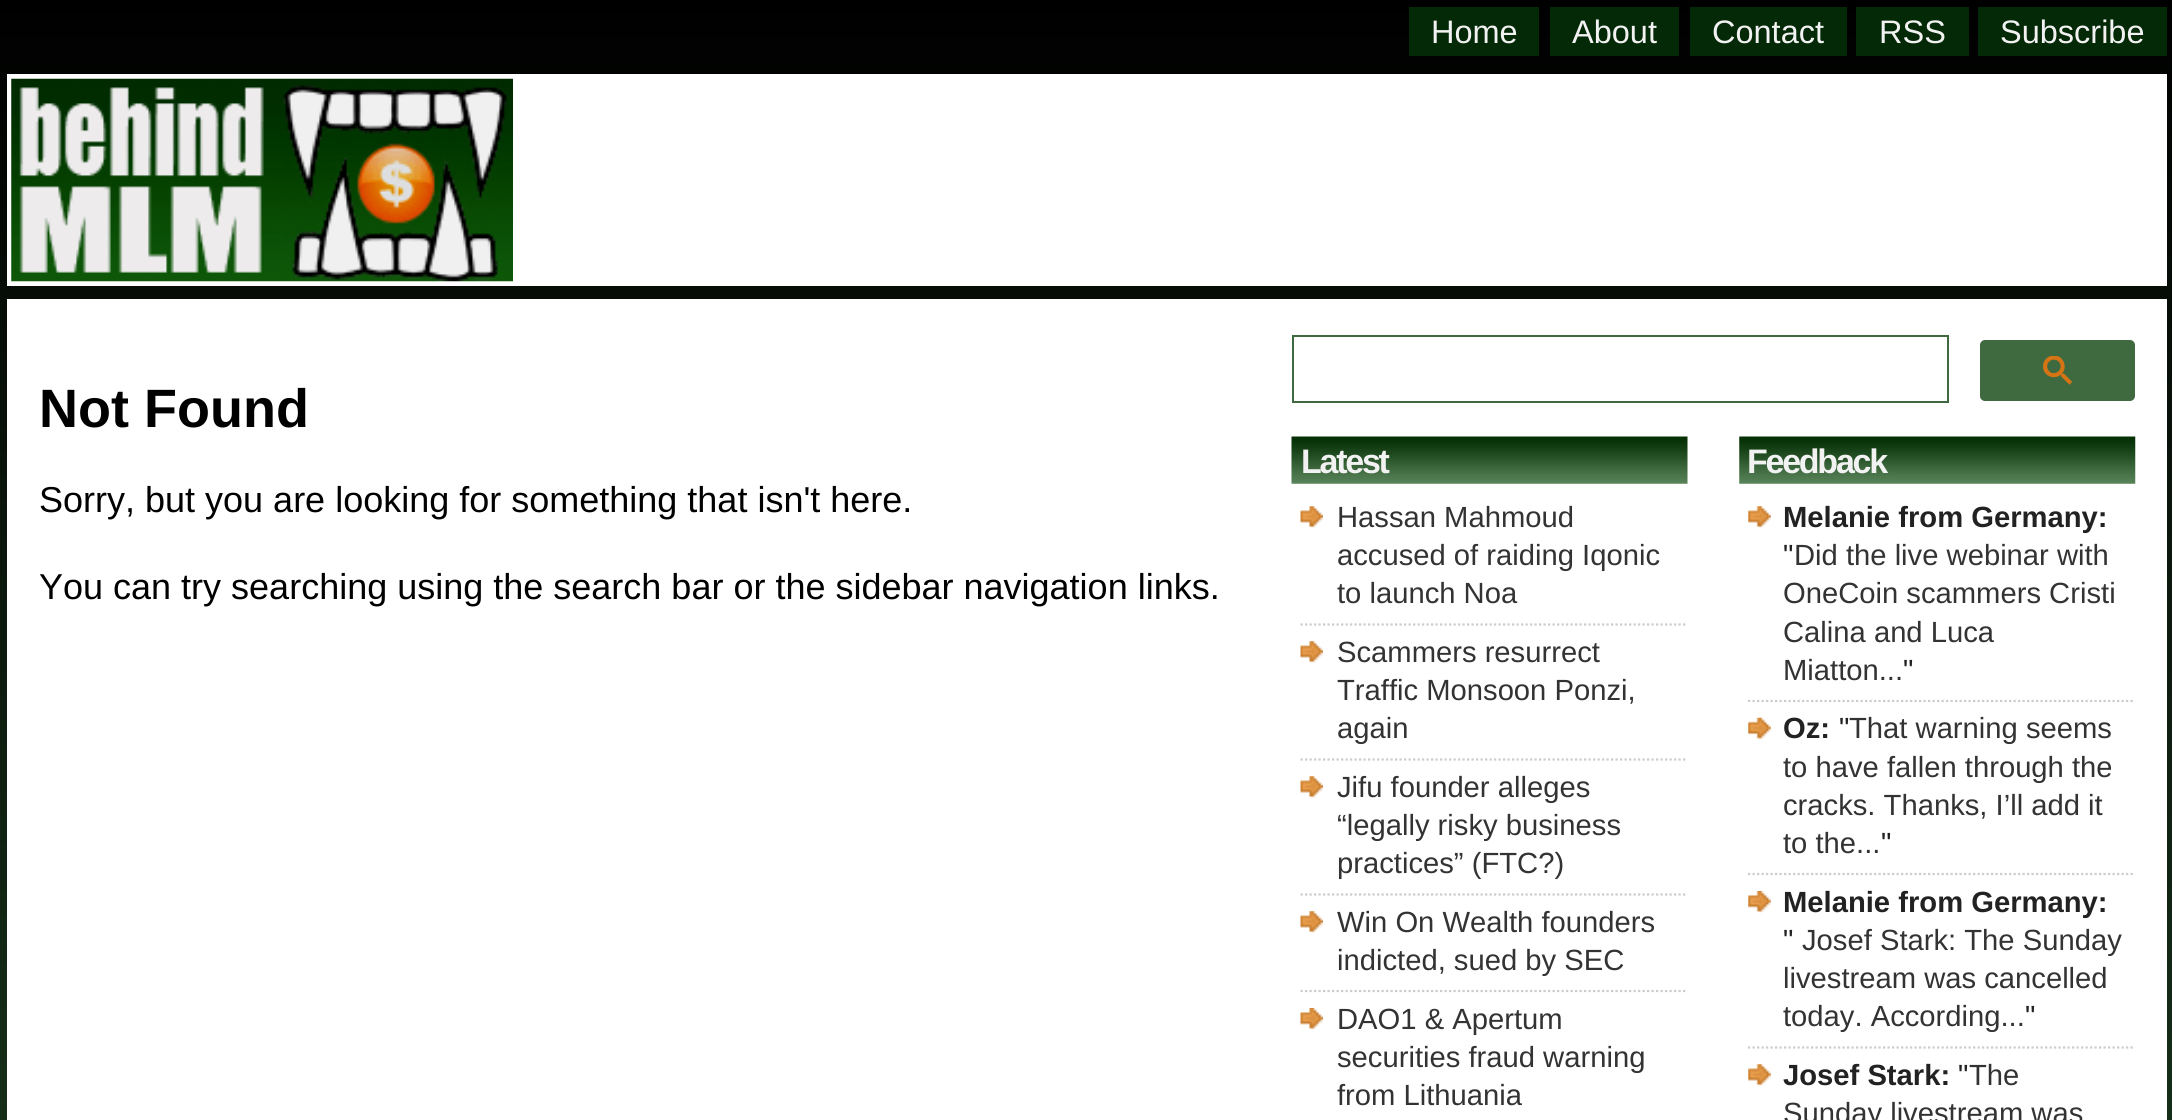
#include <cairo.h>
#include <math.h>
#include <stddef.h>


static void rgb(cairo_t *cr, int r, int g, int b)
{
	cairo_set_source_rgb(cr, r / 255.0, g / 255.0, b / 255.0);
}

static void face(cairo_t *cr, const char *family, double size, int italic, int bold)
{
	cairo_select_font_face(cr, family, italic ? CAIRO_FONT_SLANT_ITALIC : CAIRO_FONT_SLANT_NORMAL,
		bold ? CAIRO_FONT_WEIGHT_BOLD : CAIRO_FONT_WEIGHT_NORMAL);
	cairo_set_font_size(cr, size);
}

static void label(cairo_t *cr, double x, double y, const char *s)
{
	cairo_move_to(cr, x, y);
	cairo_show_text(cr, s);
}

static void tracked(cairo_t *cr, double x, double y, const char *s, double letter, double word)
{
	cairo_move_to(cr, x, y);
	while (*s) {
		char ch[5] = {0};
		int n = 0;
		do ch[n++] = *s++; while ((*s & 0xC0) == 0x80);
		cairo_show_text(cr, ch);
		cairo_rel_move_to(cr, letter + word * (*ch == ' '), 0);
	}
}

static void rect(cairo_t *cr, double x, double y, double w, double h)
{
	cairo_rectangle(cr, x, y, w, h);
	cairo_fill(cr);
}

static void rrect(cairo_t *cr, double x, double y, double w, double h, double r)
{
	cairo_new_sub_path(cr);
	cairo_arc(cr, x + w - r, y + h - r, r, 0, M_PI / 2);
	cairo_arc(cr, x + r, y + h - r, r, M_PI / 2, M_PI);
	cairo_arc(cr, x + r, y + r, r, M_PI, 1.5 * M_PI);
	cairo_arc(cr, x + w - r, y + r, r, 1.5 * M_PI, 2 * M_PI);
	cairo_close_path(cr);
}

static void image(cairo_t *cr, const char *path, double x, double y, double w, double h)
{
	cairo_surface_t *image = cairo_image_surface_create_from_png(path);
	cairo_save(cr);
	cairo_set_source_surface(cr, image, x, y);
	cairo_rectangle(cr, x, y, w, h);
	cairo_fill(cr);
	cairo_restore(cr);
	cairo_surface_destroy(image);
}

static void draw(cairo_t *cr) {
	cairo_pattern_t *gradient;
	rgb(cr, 255, 255, 255);
	cairo_paint(cr);
	gradient = cairo_pattern_create_linear(1087, 0, 1087, 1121);
	cairo_pattern_add_color_stop_rgba(gradient, 0, 0, 0, 0, 1);
	cairo_pattern_add_color_stop_rgba(gradient, 1, 0.086, 0.18, 0.094, 1);
	cairo_set_source(cr, gradient);
	cairo_pattern_destroy(gradient);
	rect(cr, 0, 0, 2172, 1120);
	rgb(cr, 4, 41, 7);
	rect(cr, 1409, 7, 130, 49);
	face(cr, "Liberation Sans", 32.5, 0, 0);
	rgb(cr, 242, 242, 242);
	label(cr, 1431, 43, "Home");
	rgb(cr, 4, 41, 7);
	rect(cr, 1550, 7, 129, 49);
	rgb(cr, 242, 242, 242);
	label(cr, 1572, 43, "About");
	rgb(cr, 4, 41, 7);
	rect(cr, 1690, 7, 157, 49);
	rgb(cr, 242, 242, 242);
	label(cr, 1712, 43, "Contact");
	rgb(cr, 4, 41, 7);
	rect(cr, 1856, 7, 113, 49);
	rgb(cr, 242, 242, 242);
	label(cr, 1879, 43, "RSS");
	rgb(cr, 4, 41, 7);
	rect(cr, 1978, 7, 189, 49);
	rgb(cr, 242, 242, 242);
	label(cr, 2000, 43, "Subscribe");
	rgb(cr, 255, 255, 255);
	rect(cr, 7, 74, 2160, 212);
	image(cr, "image0.png", 11, 78, 502, 204);
	rect(cr, 7, 299, 2160, 821);
	face(cr, "Liberation Sans", 54, 0, 1);
	rgb(cr, 0, 0, 0);
	label(cr, 39, 427, "Not Found");
	face(cr, "Liberation Sans", 36, 0, 0);
	label(cr, 39, 512, "Sorry, but you are looking for something that isn't here.");
	label(cr, 39, 599, "You can try searching using the search bar or the sidebar navigation links.");
	cairo_rectangle(cr, 1293, 336, 655, 66);
	rgb(cr, 63, 105, 63);
	cairo_stroke(cr);
	rrect(cr, 1981, 341, 153, 59, 4);
	cairo_fill_preserve(cr);
	cairo_stroke(cr);
	image(cr, "image1.png", 2043, 356, 29, 29);
	image(cr, "image2.png", 1291, 436, 397, 48);
	face(cr, "Liberation Sans", 34, 0, 1);
	rgb(cr, 242, 242, 242);
	tracked(cr, 1301, 473, "Latest", -2.25, 0);
	image(cr, "image3.png", 1300, 506, 23, 23);
	cairo_new_path(cr);
	cairo_move_to(cr, 1300.5, 624.5);
	cairo_line_to(cr, 1687.5, 624.5);
	rgb(cr, 204, 204, 204);
	cairo_set_line_width(cr, 2.2);
	cairo_set_dash(cr, (double[]){2.25, 2.25}, 2, 0);
	cairo_stroke(cr);
	face(cr, "Liberation Sans", 29.2, 0, 0);
	rgb(cr, 51, 51, 51);
	label(cr, 1337, 527, "Hassan Mahmoud");
	label(cr, 1337, 565, "accused of raiding Iqonic");
	label(cr, 1337, 603, "to launch Noa");
	image(cr, "image3.png", 1300, 641, 23, 23);
	cairo_new_path(cr);
	cairo_move_to(cr, 1300.5, 759.5);
	cairo_line_to(cr, 1687.5, 759.5);
	rgb(cr, 204, 204, 204);
	cairo_stroke(cr);
	rgb(cr, 51, 51, 51);
	label(cr, 1337, 662, "Scammers resurrect");
	label(cr, 1337, 700, "Traffic Monsoon Ponzi,");
	label(cr, 1337, 738, "again");
	image(cr, "image4.png", 1300, 776, 23, 23);
	cairo_new_path(cr);
	cairo_move_to(cr, 1300.5, 894.5);
	cairo_line_to(cr, 1687.5, 894.5);
	rgb(cr, 204, 204, 204);
	cairo_stroke(cr);
	rgb(cr, 51, 51, 51);
	label(cr, 1337, 797, "Jifu founder alleges");
	label(cr, 1337, 835, "“legally risky business");
	label(cr, 1337, 873, "practices” (FTC?)");
	image(cr, "image3.png", 1300, 911, 23, 23);
	cairo_new_path(cr);
	cairo_move_to(cr, 1300.5, 991);
	cairo_line_to(cr, 1687.5, 991);
	rgb(cr, 204, 204, 204);
	cairo_stroke(cr);
	rgb(cr, 51, 51, 51);
	label(cr, 1337, 932, "Win On Wealth founders");
	label(cr, 1337, 970, "indicted, sued by SEC");
	image(cr, "image5.png", 1300, 1008, 23, 23);
	label(cr, 1337, 1029, "DAO1 & Apertum");
	label(cr, 1337, 1067, "securities fraud warning");
	label(cr, 1337, 1105, "from Lithuania");
	image(cr, "image6.png", 1739, 436, 397, 48);
	face(cr, "Liberation Sans", 34, 0, 1);
	rgb(cr, 242, 242, 242);
	tracked(cr, 1747, 473, "Feedback", -2.25, 0);
	image(cr, "image7.png", 1748, 506, 23, 23);
	cairo_new_path(cr);
	cairo_move_to(cr, 1748, 701);
	cairo_line_to(cr, 2135, 701);
	rgb(cr, 204, 204, 204);
	cairo_stroke(cr);
	face(cr, "Liberation Sans", 29.2, 0, 1);
	rgb(cr, 34, 34, 34);
	label(cr, 1783, 527, "Melanie from Germany:");
	face(cr, "Liberation Sans", 29.2, 0, 0);
	label(cr, 1783, 565, "\"");
	rgb(cr, 51, 51, 51);
	label(cr, 1794, 565, "Did the live webinar with");
	label(cr, 1783, 603, "OneCoin scammers Cristi");
	label(cr, 1783, 642, "Calina and Luca");
	label(cr, 1783, 680, "Miatton...");
	rgb(cr, 34, 34, 34);
	label(cr, 1903, 680, "\"");
	image(cr, "image8.png", 1748, 717, 23, 23);
	cairo_new_path(cr);
	cairo_move_to(cr, 1748, 874);
	cairo_line_to(cr, 2135, 874);
	rgb(cr, 204, 204, 204);
	cairo_stroke(cr);
	face(cr, "Liberation Sans", 29.2, 0, 1);
	rgb(cr, 34, 34, 34);
	label(cr, 1783, 738, "Oz:");
	face(cr, "Liberation Sans", 29.2, 0, 0);
	label(cr, 1839, 738, "\"");
	rgb(cr, 51, 51, 51);
	label(cr, 1849, 738, "That warning seems");
	label(cr, 1783, 777, "to have fallen through the");
	label(cr, 1783, 815, "cracks. Thanks, I’ll add it");
	label(cr, 1783, 853, "to the...");
	rgb(cr, 34, 34, 34);
	label(cr, 1881, 853, "\"");
	image(cr, "image9.png", 1748, 891, 23, 23);
	cairo_new_path(cr);
	cairo_move_to(cr, 1748, 1047.5);
	cairo_line_to(cr, 2135, 1047.5);
	rgb(cr, 204, 204, 204);
	cairo_stroke(cr);
	face(cr, "Liberation Sans", 29.2, 0, 1);
	rgb(cr, 34, 34, 34);
	label(cr, 1783, 912, "Melanie from Germany:");
	face(cr, "Liberation Sans", 29.2, 0, 0);
	label(cr, 1783, 950, "\"");
	rgb(cr, 51, 51, 51);
	label(cr, 1802, 950, "Josef Stark: The Sunday");
	label(cr, 1783, 988, "livestream was cancelled");
	label(cr, 1783, 1026, "today. According...");
	rgb(cr, 34, 34, 34);
	label(cr, 2025, 1026, "\"");
	image(cr, "image7.png", 1748, 1064, 23, 23);
	face(cr, "Liberation Sans", 29.2, 0, 1);
	label(cr, 1783, 1085, "Josef Stark:");
	face(cr, "Liberation Sans", 29.2, 0, 0);
	label(cr, 1958, 1085, "\"");
	rgb(cr, 51, 51, 51);
	label(cr, 1969, 1085, "The");
	label(cr, 1783, 1123, "Sunday livestream was");
}

int main(void) {
	cairo_surface_t *surface = cairo_image_surface_create(CAIRO_FORMAT_RGB24, 2172, 1120);
	cairo_t *cr = cairo_create(surface);
	cairo_font_options_t *options = cairo_font_options_create();
	cairo_font_options_set_hint_metrics(options, CAIRO_HINT_METRICS_OFF);
	cairo_font_options_set_hint_style(options, CAIRO_HINT_STYLE_NONE);
	cairo_set_font_options(cr, options);
	cairo_set_miter_limit(cr, 4);
	draw(cr);
	cairo_surface_write_to_png(surface, "render.png");
	cairo_font_options_destroy(options);
	cairo_destroy(cr);
	cairo_surface_destroy(surface);
	return 0;
}
